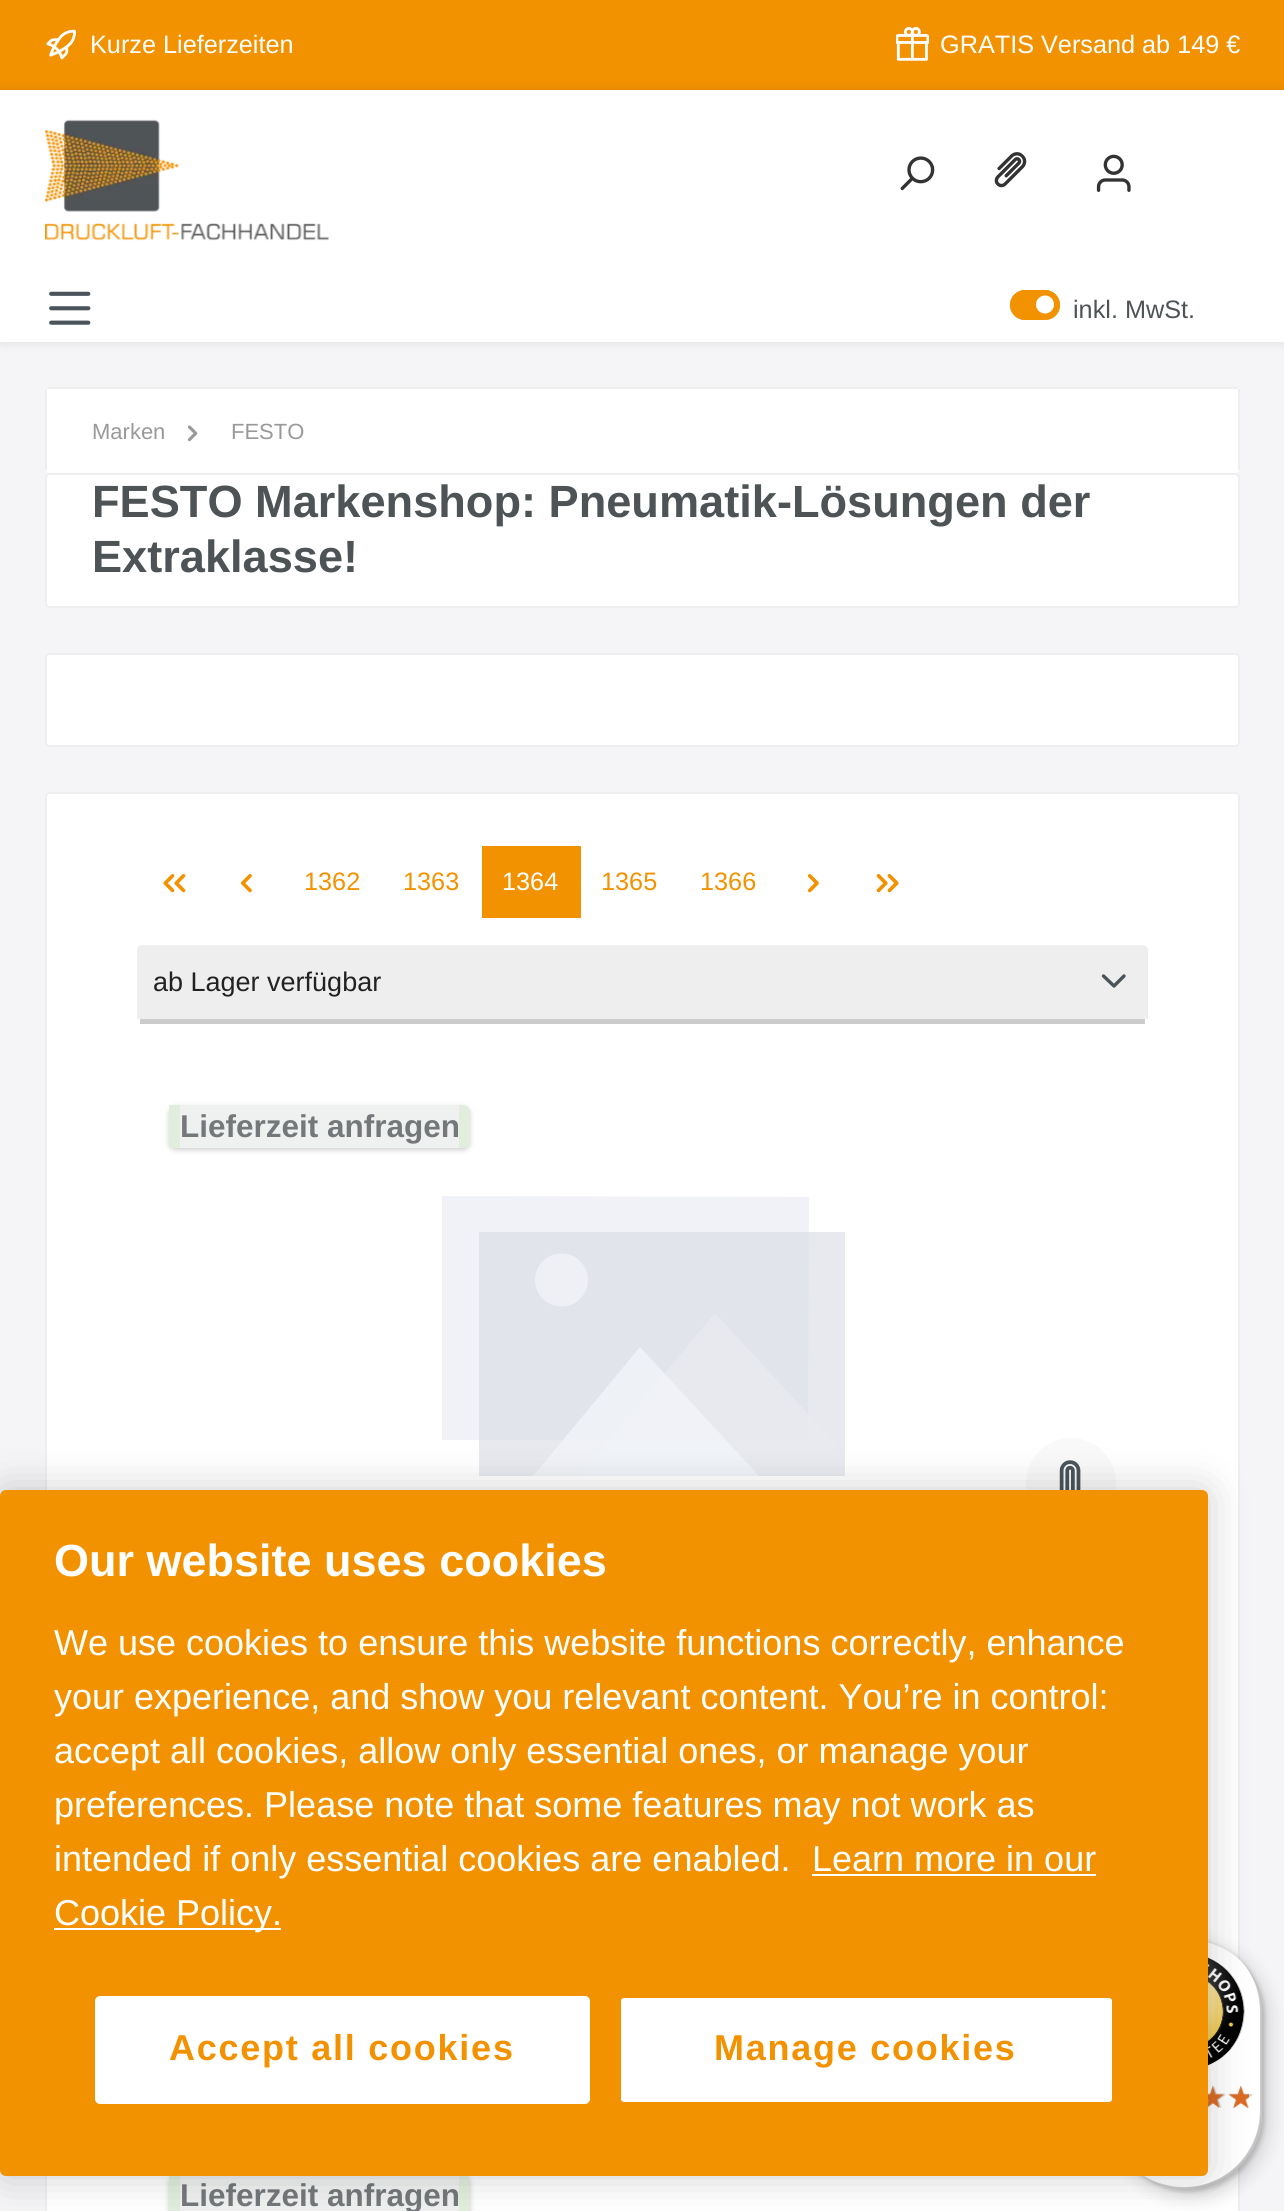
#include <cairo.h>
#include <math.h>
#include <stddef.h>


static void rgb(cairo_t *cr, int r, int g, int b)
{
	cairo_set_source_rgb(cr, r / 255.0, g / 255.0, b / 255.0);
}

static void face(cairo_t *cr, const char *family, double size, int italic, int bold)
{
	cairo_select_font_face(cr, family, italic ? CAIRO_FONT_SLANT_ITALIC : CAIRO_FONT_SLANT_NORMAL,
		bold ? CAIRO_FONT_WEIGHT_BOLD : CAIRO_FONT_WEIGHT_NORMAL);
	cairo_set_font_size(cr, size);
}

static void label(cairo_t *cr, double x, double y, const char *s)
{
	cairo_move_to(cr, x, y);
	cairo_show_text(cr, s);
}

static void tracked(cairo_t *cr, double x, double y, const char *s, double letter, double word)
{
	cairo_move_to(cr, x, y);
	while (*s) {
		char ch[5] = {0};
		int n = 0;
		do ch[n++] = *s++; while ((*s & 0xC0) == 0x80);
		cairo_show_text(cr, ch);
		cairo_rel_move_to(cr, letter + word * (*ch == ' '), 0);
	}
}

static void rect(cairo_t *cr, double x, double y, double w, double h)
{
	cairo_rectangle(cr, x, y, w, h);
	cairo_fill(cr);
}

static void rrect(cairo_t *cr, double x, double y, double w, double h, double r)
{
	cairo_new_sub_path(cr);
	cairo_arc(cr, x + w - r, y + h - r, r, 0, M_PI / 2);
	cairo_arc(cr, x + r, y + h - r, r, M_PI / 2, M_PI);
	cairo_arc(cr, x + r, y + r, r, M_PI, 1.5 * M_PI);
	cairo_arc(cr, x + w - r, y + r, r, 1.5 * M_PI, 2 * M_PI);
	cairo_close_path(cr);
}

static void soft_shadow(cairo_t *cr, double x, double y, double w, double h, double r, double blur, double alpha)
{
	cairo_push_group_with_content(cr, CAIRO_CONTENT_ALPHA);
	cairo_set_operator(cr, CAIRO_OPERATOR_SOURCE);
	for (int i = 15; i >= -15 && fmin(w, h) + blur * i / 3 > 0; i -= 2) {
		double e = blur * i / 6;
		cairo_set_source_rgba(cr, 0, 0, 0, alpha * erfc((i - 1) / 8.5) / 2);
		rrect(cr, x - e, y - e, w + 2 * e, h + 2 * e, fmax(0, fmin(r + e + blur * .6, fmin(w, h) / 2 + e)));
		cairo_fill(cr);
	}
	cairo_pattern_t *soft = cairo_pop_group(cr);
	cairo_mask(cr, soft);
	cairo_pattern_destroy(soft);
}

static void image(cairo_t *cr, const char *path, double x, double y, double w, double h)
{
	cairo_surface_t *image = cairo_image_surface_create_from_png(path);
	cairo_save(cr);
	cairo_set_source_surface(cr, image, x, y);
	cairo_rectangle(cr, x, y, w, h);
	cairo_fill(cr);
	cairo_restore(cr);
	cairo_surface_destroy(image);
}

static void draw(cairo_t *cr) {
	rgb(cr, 245, 245, 248);
	cairo_paint(cr);
	rgb(cr, 243, 146, 0);
	rect(cr, 0, 0, 1284, 90);
	image(cr, "image0.png", 46, 29, 30, 31);
	face(cr, "Liberation Sans", 25.25, 0, 0);
	rgb(cr, 255, 255, 255);
	label(cr, 90, 53, "Kurze Lieferzeiten");
	image(cr, "image1.png", 896, 27, 33, 34);
	label(cr, 940, 53, "GRATIS Versand ab 149 €");
	rgb(cr, 0, 0, 0);
	soft_shadow(cr, 0, 90, 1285, 252, 0, 5.5, 0.1);
	rgb(cr, 255, 255, 255);
	rect(cr, 0, 90, 1284, 252);
	image(cr, "image2.png", 45, 119, 284, 122);
	image(cr, "image3.png", 900, 156, 35, 35);
	image(cr, "image4.png", 994, 152, 33, 36);
	image(cr, "image5.png", 1096, 154, 35, 38);
	image(cr, "image6.png", 49, 291, 42, 34);
	rgb(cr, 243, 146, 1);
	rrect(cr, 1010, 290, 50, 30, 15);
	cairo_fill(cr);
	rgb(cr, 255, 255, 255);
	cairo_arc(cr, 1045, 304.5, 9, 0, 2 * M_PI);
	cairo_fill(cr);
	rrect(cr, 1011, 291, 48, 28, 14);
	rgb(cr, 243, 146, 1);
	cairo_stroke(cr);
	rgb(cr, 78, 83, 86);
	label(cr, 1073, 318, "inkl. MwSt.");
	rgb(cr, 255, 255, 255);
	rrect(cr, 45, 387, 1195, 86, 5);
	cairo_fill(cr);
	rgb(cr, 238, 238, 238);
	rect(cr, 47, 387, 1191, 2);
	rect(cr, 1238, 389, 2, 81);
	rect(cr, 45, 389, 2, 81);
	face(cr, "Liberation Sans", 22, 0, 0);
	rgb(cr, 153, 153, 153);
	label(cr, 92, 439, "Marken");
	image(cr, "image7.png", 187, 425, 11, 17);
	label(cr, 231, 439, "FESTO");
	rgb(cr, 255, 255, 255);
	rrect(cr, 46, 474, 1193, 133, 4);
	cairo_fill_preserve(cr);
	rgb(cr, 238, 238, 238);
	cairo_stroke(cr);
	face(cr, "Liberation Sans", 45.15, 0, 1);
	rgb(cr, 78, 83, 86);
	label(cr, 92, 517, "FESTO Markenshop: Pneumatik-Lösungen der");
	label(cr, 92, 572, "Extraklasse!");
	rgb(cr, 255, 255, 255);
	rrect(cr, 46, 654, 1193, 92, 4);
	cairo_fill_preserve(cr);
	rgb(cr, 238, 238, 238);
	cairo_stroke(cr);
	rgb(cr, 255, 255, 255);
	rrect(cr, 46, 793, 1193, 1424, 4);
	cairo_fill_preserve(cr);
	rgb(cr, 238, 238, 238);
	cairo_stroke(cr);
	image(cr, "image8.png", 163, 874, 23, 19);
	image(cr, "image9.png", 240, 874, 12, 19);
	face(cr, "Liberation Sans", 25.25, 0, 0);
	rgb(cr, 243, 146, 1);
	label(cr, 304, 890, "1362");
	label(cr, 403, 890, "1363");
	rect(cr, 482, 846, 99, 72);
	rgb(cr, 255, 255, 255);
	label(cr, 502, 890, "1364");
	rgb(cr, 243, 146, 1);
	label(cr, 601, 890, "1365");
	label(cr, 700, 890, "1366");
	image(cr, "image10.png", 807, 874, 12, 19);
	image(cr, "image11.png", 876, 874, 23, 19);
	rgb(cr, 238, 238, 238);
	cairo_new_path(cr);
	cairo_move_to(cr, 142, 945);
	cairo_line_to(cr, 1143, 945);
	cairo_curve_to(cr, 1145, 945, 1148, 947, 1148, 950);
	cairo_line_to(cr, 1148, 1019);
	cairo_line_to(cr, 137, 1019);
	cairo_line_to(cr, 137, 950);
	cairo_curve_to(cr, 137, 947, 139, 945, 142, 945);
	cairo_close_path(cr);
	cairo_fill(cr);
	cairo_new_path(cr);
	cairo_move_to(cr, 1103.5, 976);
	cairo_line_to(cr, 1114, 986);
	cairo_line_to(cr, 1124, 976);
	rgb(cr, 74, 84, 91);
	cairo_set_line_width(cr, 3.4);
	cairo_set_line_cap(cr, CAIRO_LINE_CAP_ROUND);
	cairo_set_line_join(cr, CAIRO_LINE_JOIN_ROUND);
	cairo_stroke(cr);
	rgb(cr, 204, 204, 204);
	rect(cr, 140, 1019, 1005, 5);
	face(cr, "Liberation Sans", 27, 0, 0);
	rgb(cr, 34, 34, 34);
	label(cr, 153, 991, "ab Lager verfügbar");
	rgb(cr, 0, 0, 0);
	soft_shadow(cr, 169, 1107, 301, 43, 7, 2, 0.1);
	soft_shadow(cr, 169, 1107, 301, 43, 7, 3.5, 0.1);
	rgb(cr, 225, 238, 221);
	cairo_new_path(cr);
	cairo_move_to(cr, 169, 1105);
	cairo_line_to(cr, 463, 1105);
	cairo_curve_to(cr, 467, 1105, 470, 1108, 470, 1112);
	cairo_line_to(cr, 470, 1141);
	cairo_curve_to(cr, 470, 1145, 467, 1148, 463, 1148);
	cairo_line_to(cr, 169, 1148);
	cairo_close_path(cr);
	cairo_fill(cr);
	rgb(cr, 239, 240, 240);
	rect(cr, 180, 1105, 279, 43);
	face(cr, "Liberation Sans", 31.5, 0, 1);
	rgb(cr, 117, 120, 122);
	label(cr, 180, 1137, "Lieferzeit anfragen");
	rgb(cr, 241, 242, 247);
	cairo_new_path(cr);
	cairo_move_to(cr, 442, 1440);
	cairo_line_to(cr, 442, 1196);
	cairo_line_to(cr, 809, 1197);
	cairo_line_to(cr, 808, 1441);
	cairo_close_path(cr);
	cairo_fill(cr);
	cairo_set_source_rgba(cr, 0.855, 0.867, 0.898, 0.65);
	rect(cr, 479, 1232, 366, 244);
	cairo_set_source_rgba(cr, 0.914, 0.922, 0.949, 0.65);
	cairo_set_fill_rule(cr, CAIRO_FILL_RULE_EVEN_ODD);
	cairo_new_path(cr);
	cairo_move_to(cr, 579, 1476);
	cairo_line_to(cr, 845, 1476);
	cairo_line_to(cr, 845, 1454);
	cairo_line_to(cr, 715, 1313);
	cairo_close_path(cr);
	cairo_fill(cr);
	rgb(cr, 238, 240, 246);
	cairo_arc(cr, 561.5, 1280, 26.5, 0, 2 * M_PI);
	cairo_fill(cr);
	cairo_set_source_rgba(cr, 0.961, 0.969, 0.988, 0.65);
	cairo_new_path(cr);
	cairo_move_to(cr, 640, 1347);
	cairo_line_to(cr, 533, 1476);
	cairo_line_to(cr, 759, 1476);
	cairo_close_path(cr);
	cairo_fill(cr);
	rgb(cr, 249, 249, 249);
	cairo_arc(cr, 1071, 1483, 45, 0, 2 * M_PI);
	cairo_fill(cr);
	image(cr, "image12.png", 1059, 1460, 22, 30);
	rgb(cr, 0, 0, 0);
	soft_shadow(cr, 169, 2176, 301, 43, 7, 2, 0.1);
	soft_shadow(cr, 169, 2176, 301, 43, 7, 3.5, 0.1);
	rgb(cr, 225, 238, 221);
	cairo_new_path(cr);
	cairo_move_to(cr, 169, 2174);
	cairo_line_to(cr, 463, 2174);
	cairo_curve_to(cr, 467, 2174, 470, 2177, 470, 2181);
	cairo_line_to(cr, 470, 2209);
	cairo_curve_to(cr, 470, 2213, 467, 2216, 463, 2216);
	cairo_line_to(cr, 169, 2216);
	cairo_close_path(cr);
	cairo_fill(cr);
	rgb(cr, 239, 240, 240);
	rect(cr, 180, 2176, 279, 35);
	rgb(cr, 117, 120, 122);
	label(cr, 180, 2206, "Lieferzeit anfragen");
	rgb(cr, 0, 0, 0);
	soft_shadow(cr, 1116, 1944, 153, 252, 76.5, 9, 0.15);
	soft_shadow(cr, 1112, 1940, 153, 252, 76.5, 2, 0.15);
	rgb(cr, 255, 255, 255);
	rrect(cr, 1109, 1937, 153, 252, 76.5);
	cairo_fill(cr);
	cairo_set_source_rgba(cr, 0, 0, 0, 0.1);
	cairo_set_fill_rule(cr, CAIRO_FILL_RULE_WINDING);
	cairo_new_path(cr);
	cairo_move_to(cr, 1188, 1940);
	cairo_curve_to(cr, 1212, 1940, 1234, 1951, 1248, 1969);
	cairo_curve_to(cr, 1234, 1950, 1211, 1937, 1186, 1937);
	cairo_curve_to(cr, 1143, 1937, 1109, 1971, 1109, 2014);
	cairo_line_to(cr, 1109, 2112);
	cairo_curve_to(cr, 1109, 2135, 1119, 2156, 1135, 2170);
	cairo_curve_to(cr, 1121, 2156, 1112, 2136, 1112, 2115);
	cairo_line_to(cr, 1112, 2016);
	cairo_curve_to(cr, 1112, 1974, 1146, 1940, 1188, 1940);
	cairo_close_path(cr);
	cairo_fill(cr);
	cairo_set_source_rgba(cr, 0, 0, 0, 0.2);
	cairo_new_path(cr);
	cairo_move_to(cr, 1131, 2166);
	cairo_curve_to(cr, 1145, 2180, 1164, 2189, 1186, 2189);
	cairo_curve_to(cr, 1228, 2189, 1262, 2155, 1262, 2112);
	cairo_line_to(cr, 1262, 2014);
	cairo_curve_to(cr, 1262, 1993, 1254, 1974, 1241, 1961);
	cairo_curve_to(cr, 1253, 1974, 1260, 1992, 1260, 2012);
	cairo_line_to(cr, 1260, 2110);
	cairo_curve_to(cr, 1260, 2153, 1226, 2187, 1184, 2187);
	cairo_curve_to(cr, 1163, 2187, 1145, 2179, 1131, 2166);
	cairo_close_path(cr);
	cairo_fill(cr);
	cairo_set_source_rgba(cr, 0.196, 0.196, 0.196, 0.2);
	cairo_new_path(cr);
	cairo_move_to(cr, 1137, 2172);
	cairo_curve_to(cr, 1150, 2183, 1167, 2189, 1186, 2189);
	cairo_curve_to(cr, 1228, 2189, 1262, 2155, 1262, 2112);
	cairo_line_to(cr, 1262, 2014);
	cairo_curve_to(cr, 1262, 1995, 1256, 1978, 1245, 1965);
	cairo_curve_to(cr, 1255, 1978, 1261, 1994, 1261, 2012);
	cairo_line_to(cr, 1261, 2111);
	cairo_curve_to(cr, 1261, 2154, 1227, 2188, 1184, 2188);
	cairo_curve_to(cr, 1166, 2188, 1150, 2182, 1137, 2172);
	cairo_close_path(cr);
	cairo_fill(cr);
	cairo_set_source_rgba(cr, 1, 1, 1, 0.3);
	cairo_new_path(cr);
	cairo_move_to(cr, 1135, 2170);
	cairo_curve_to(cr, 1149, 2182, 1166, 2189, 1186, 2189);
	cairo_curve_to(cr, 1228, 2189, 1262, 2155, 1262, 2112);
	cairo_line_to(cr, 1262, 2014);
	cairo_curve_to(cr, 1262, 1994, 1255, 1977, 1243, 1963);
	cairo_curve_to(cr, 1254, 1977, 1261, 1994, 1261, 2013);
	cairo_line_to(cr, 1261, 2112);
	cairo_curve_to(cr, 1261, 2154, 1227, 2188, 1185, 2188);
	cairo_curve_to(cr, 1166, 2188, 1149, 2181, 1135, 2170);
	cairo_close_path(cr);
	cairo_fill(cr);
	image(cr, "image13.png", 1208, 1957, 37, 109);
	image(cr, "image14.png", 1208, 2085, 18, 23);
	image(cr, "image15.png", 1229, 2086, 25, 22);
	image(cr, "image16.png", 1208, 2085, 16, 23);
	image(cr, "image17.png", 1228, 2085, 21, 23);
	rgb(cr, 255, 255, 255);
	cairo_arc(cr, 85.5, 2126.5, 58.5, 0, 2 * M_PI);
	cairo_fill(cr);
	rgb(cr, 0, 0, 0);
	soft_shadow(cr, 0, 1490, 1208, 686, 6, 20, 0.2);
	rgb(cr, 243, 146, 0);
	rrect(cr, 0, 1490, 1208, 686, 6);
	cairo_fill(cr);
	face(cr, "Liberation Sans", 45, 0, 1);
	rgb(cr, 255, 255, 255);
	label(cr, 54, 1576, "Our website uses cookies");
	face(cr, "Liberation Sans", 36, 0, 0);
	label(cr, 54, 1655, "We use cookies to ensure this website functions correctly, enhance");
	label(cr, 54, 1709, "your experience, and show you relevant content. You’re in control:");
	label(cr, 54, 1763, "accept all cookies, allow only essential ones, or manage your");
	label(cr, 54, 1817, "preferences. Please note that some features may not work as");
	label(cr, 54, 1871, "intended if only essential cookies are enabled.");
	label(cr, 812, 1871, "Learn more in our");
	rect(cr, 812, 1874, 284, 2);
	rect(cr, 54, 1928, 227, 2);
	label(cr, 54, 1925, "Cookie Policy.");
	rrect(cr, 96, 1997, 493, 106, 4);
	cairo_fill_preserve(cr);
	cairo_set_line_width(cr, 2);
	cairo_set_line_cap(cr, CAIRO_LINE_CAP_BUTT);
	cairo_set_line_join(cr, CAIRO_LINE_JOIN_MITER);
	cairo_stroke(cr);
	face(cr, "Liberation Sans", 36, 0, 1);
	rgb(cr, 243, 146, 1);
	tracked(cr, 169, 2060, "Accept all cookies", 1.75, 0);
	rgb(cr, 255, 255, 255);
	rrect(cr, 620, 1997, 493, 106, 4);
	cairo_fill_preserve(cr);
	rgb(cr, 243, 146, 0);
	cairo_stroke(cr);
	rgb(cr, 243, 146, 1);
	tracked(cr, 714, 2060, "Manage cookies", 1.75, 0);
	rgb(cr, 245, 245, 245);
	rect(cr, 1280, 2207, 4, 4);
}

int main(void) {
	cairo_surface_t *surface = cairo_image_surface_create(CAIRO_FORMAT_RGB24, 1284, 2211);
	cairo_t *cr = cairo_create(surface);
	cairo_font_options_t *options = cairo_font_options_create();
	cairo_font_options_set_hint_metrics(options, CAIRO_HINT_METRICS_OFF);
	cairo_font_options_set_hint_style(options, CAIRO_HINT_STYLE_NONE);
	cairo_set_font_options(cr, options);
	cairo_set_miter_limit(cr, 4);
	draw(cr);
	cairo_surface_write_to_png(surface, "render.png");
	cairo_font_options_destroy(options);
	cairo_destroy(cr);
	cairo_surface_destroy(surface);
	return 0;
}
